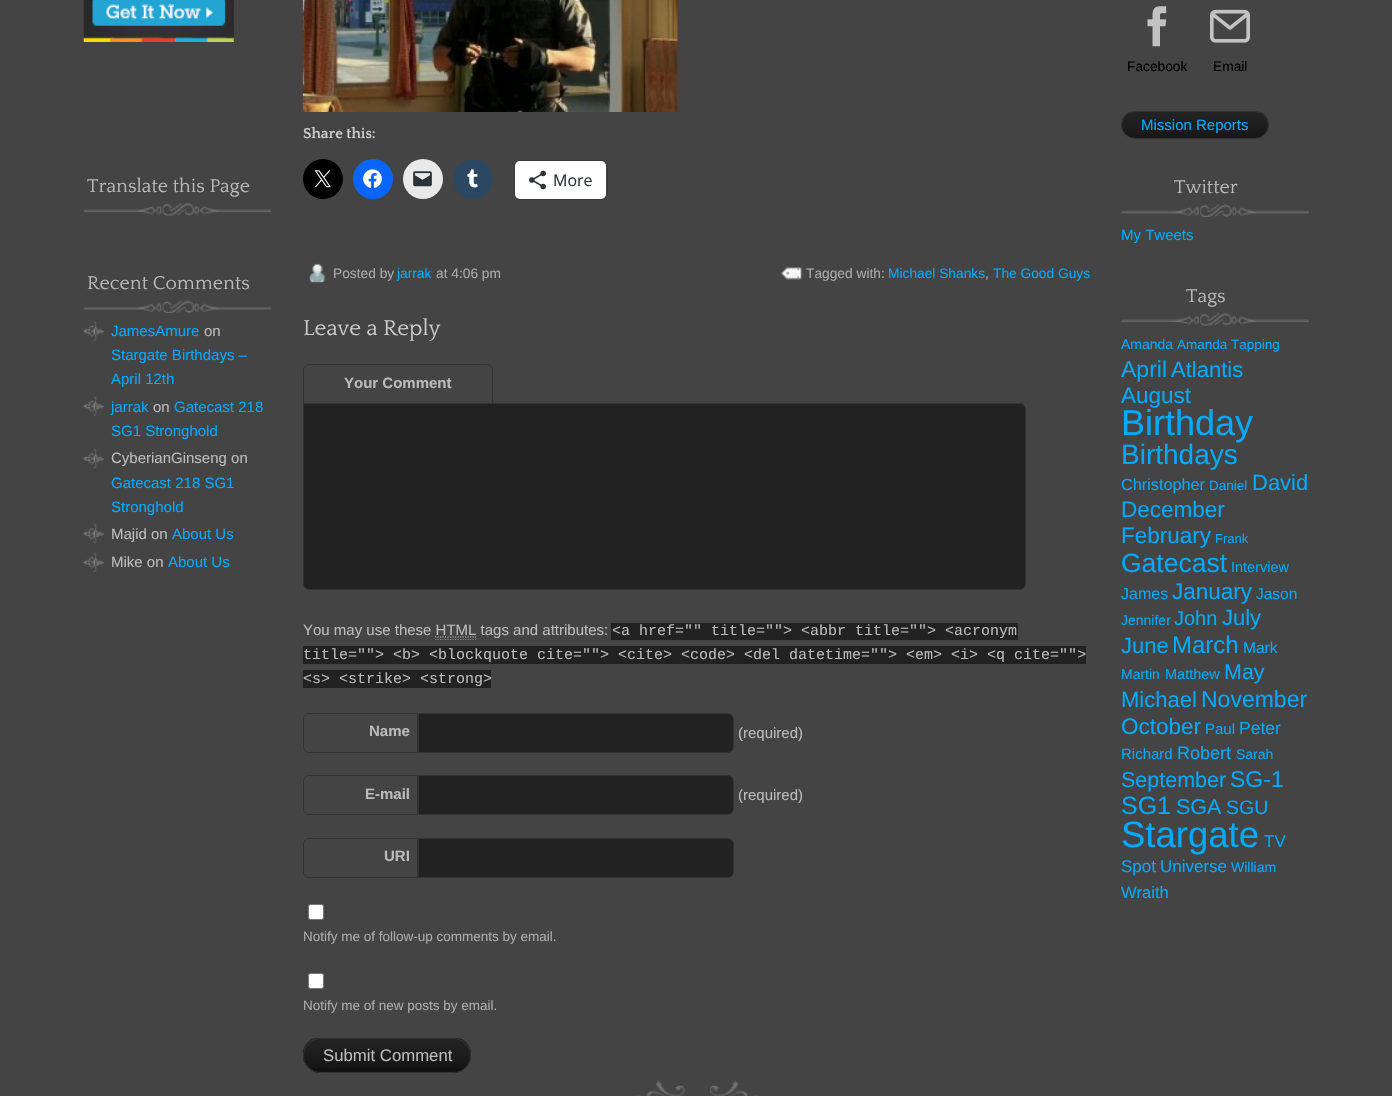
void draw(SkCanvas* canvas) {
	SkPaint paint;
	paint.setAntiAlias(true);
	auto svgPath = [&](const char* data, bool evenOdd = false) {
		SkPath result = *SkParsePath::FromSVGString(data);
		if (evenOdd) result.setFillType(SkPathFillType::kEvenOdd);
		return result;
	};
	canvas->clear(0xff444444);
	canvas->drawImageRect(SkImages::DeferredFromEncodedData(SkData::MakeFromFileName("img1.png")), SkRect::MakeXYWH(83, 0, 151, 42), SkSamplingOptions());
	canvas->drawImageRect(SkImages::DeferredFromEncodedData(SkData::MakeFromFileName("img2.png")), SkRect::MakeXYWH(83, 203, 189, 13), SkSamplingOptions());
	SkFont f1(fontMgr->matchFamilyStyle("Quattrocento", SkFontStyle::Normal()), 19.5);
	f1.setSubpixel(true);
	paint.setColor(0xffbbbbbb);
	canvas->drawString("Translate this Page", 87, 192, f1, paint);
	canvas->drawImageRect(SkImages::DeferredFromEncodedData(SkData::MakeFromFileName("img3.png")), SkRect::MakeXYWH(83, 300, 189, 13), SkSamplingOptions());
	canvas->drawString("Recent Comments", 87, 289, f1, paint);
	canvas->drawImageRect(SkImages::DeferredFromEncodedData(SkData::MakeFromFileName("img4.png")), SkRect::MakeXYWH(83, 321, 21, 20), SkSamplingOptions());
	SkFont f2(fontMgr->matchFamilyStyle("Liberation Sans", SkFontStyle::Normal()), 15);
	f2.setSubpixel(true);
	paint.setColor(0xff00aaff);
	canvas->drawString("JamesAmure", 111, 336, f2, paint);
	paint.setColor(0xffbbbbbb);
	canvas->drawString("on", 204, 336, f2, paint);
	paint.setColor(0xff00aaff);
	canvas->drawString("Stargate Birthdays –", 111, 360, f2, paint);
	canvas->drawString("April 12th", 111, 384, f2, paint);
	canvas->drawImageRect(SkImages::DeferredFromEncodedData(SkData::MakeFromFileName("img4.png")), SkRect::MakeXYWH(83, 396, 21, 20), SkSamplingOptions());
	canvas->drawString("jarrak", 111, 412, f2, paint);
	paint.setColor(0xffbbbbbb);
	canvas->drawString("on", 153, 412, f2, paint);
	paint.setColor(0xff00aaff);
	canvas->drawString("Gatecast 218", 174, 412, f2, paint);
	canvas->drawString("SG1 Stronghold", 111, 436, f2, paint);
	canvas->drawImageRect(SkImages::DeferredFromEncodedData(SkData::MakeFromFileName("img5.png")), SkRect::MakeXYWH(83, 448, 21, 21), SkSamplingOptions());
	paint.setColor(0xffbbbbbb);
	canvas->drawString("CyberianGinseng on", 111, 463, f2, paint);
	paint.setColor(0xff00aaff);
	canvas->drawString("Gatecast 218 SG1", 111, 488, f2, paint);
	canvas->drawString("Stronghold", 111, 512, f2, paint);
	canvas->drawImageRect(SkImages::DeferredFromEncodedData(SkData::MakeFromFileName("img5.png")), SkRect::MakeXYWH(83, 523, 21, 21), SkSamplingOptions());
	paint.setColor(0xffbbbbbb);
	canvas->drawString("Majid on", 111, 539, f2, paint);
	paint.setColor(0xff00aaff);
	canvas->drawString("About Us", 172, 539, f2, paint);
	canvas->drawImageRect(SkImages::DeferredFromEncodedData(SkData::MakeFromFileName("img6.png")), SkRect::MakeXYWH(83, 552, 21, 20), SkSamplingOptions());
	paint.setColor(0xffbbbbbb);
	canvas->drawString("Mike on", 111, 567, f2, paint);
	paint.setColor(0xff00aaff);
	canvas->drawString("About Us", 168, 567, f2, paint);
	canvas->drawImageRect(SkImages::DeferredFromEncodedData(SkData::MakeFromFileName("img7.png")), SkRect::MakeXYWH(302, 0, 376, 112), SkSamplingOptions());
	SkFont f3(fontMgr->matchFamilyStyle("Quattrocento", SkFontStyle::Bold()), 15);
	f3.setSubpixel(true);
	paint.setColor(0xffcccccc);
	canvas->drawString("Share this:", 303, 138, f3, paint);
	paint.setColor(0xff000000);
	canvas->drawCircle(323, 179, 20, paint);
	canvas->drawImageRect(SkImages::DeferredFromEncodedData(SkData::MakeFromFileName("img8.png")), SkRect::MakeXYWH(314, 170, 17, 18), SkSamplingOptions());
	paint.setColor(0xff0866ff);
	canvas->drawCircle(373, 179, 20, paint);
	canvas->drawImageRect(SkImages::DeferredFromEncodedData(SkData::MakeFromFileName("img9.png")), SkRect::MakeXYWH(363, 169, 19, 19), SkSamplingOptions());
	paint.setColor(0xffe9e9e9);
	canvas->drawCircle(423, 179, 20, paint);
	canvas->drawImageRect(SkImages::DeferredFromEncodedData(SkData::MakeFromFileName("img10.png")), SkRect::MakeXYWH(413, 171, 19, 16), SkSamplingOptions());
	paint.setColor(0xff2c4762);
	canvas->drawCircle(473, 179, 20, paint);
	canvas->drawImageRect(SkImages::DeferredFromEncodedData(SkData::MakeFromFileName("img11.png")), SkRect::MakeXYWH(467, 169, 11, 19), SkSamplingOptions());
	paint.setStroke(true);
	paint.setStrokeWidth(1);
	paint.setColor(0xff3c3c3c);
	canvas->drawRoundRect(SkRect::MakeXYWH(514.5, 160.5, 93, 39), 5.5, 5.5, paint);
	paint.setStroke(false);
	paint.setColor(0xffffffff);
	canvas->drawRoundRect(SkRect::MakeXYWH(515, 161, 91, 38), 5, 5, paint);
	canvas->drawImageRect(SkImages::DeferredFromEncodedData(SkData::MakeFromFileName("img12.png")), SkRect::MakeXYWH(529, 170, 17, 20), SkSamplingOptions());
	SkFont f4(fontMgr->matchFamilyStyle("Open Sans", SkFontStyle::Normal()), 16);
	f4.setSubpixel(true);
	paint.setColor(0xff2c3338);
	canvas->drawString("More", 553, 186, f4, paint);
	canvas->drawImageRect(SkImages::DeferredFromEncodedData(SkData::MakeFromFileName("img13.png")), SkRect::MakeXYWH(309, 263, 17, 20), SkSamplingOptions());
	SkFont f5(fontMgr->matchFamilyStyle("Liberation Sans", SkFontStyle::Normal()), 13.75);
	f5.setSubpixel(true);
	paint.setColor(0xffaaaaaa);
	canvas->drawString("Posted by", 333, 278, f5, paint);
	paint.setColor(0xff00aaff);
	canvas->drawString("jarrak", 397, 278, f5, paint);
	paint.setColor(0xffaaaaaa);
	canvas->drawString("at 4:06 pm", 436, 278, f5, paint);
	canvas->drawImageRect(SkImages::DeferredFromEncodedData(SkData::MakeFromFileName("img14.png")), SkRect::MakeXYWH(781, 267, 21, 13), SkSamplingOptions());
	canvas->drawString("Tagged with:", 806, 278, f5, paint);
	paint.setColor(0xff00aaff);
	canvas->drawString("Michael Shanks", 888, 278, f5, paint);
	paint.setColor(0xffaaaaaa);
	canvas->drawString(",", 985, 278, f5, paint);
	paint.setColor(0xff00aaff);
	canvas->drawString("The Good Guys", 993, 278, f5, paint);
	canvas->drawImageRect(SkImages::DeferredFromEncodedData(SkData::MakeFromFileName("img15.png")), SkRect::MakeXYWH(637, 1079, 121, 17), SkSamplingOptions());
	SkFont f6(fontMgr->matchFamilyStyle("Quattrocento", SkFontStyle::Normal()), 22.5);
	f6.setSubpixel(true);
	paint.setColor(0xffcccccc);
	canvas->drawString("Leave a Reply", 303, 335, f6, paint);
	paint.setStroke(true);
	paint.setColor(0xff333333);
	canvas->drawPath(svgPath("M309 364.5H487C490 364.5 492.5 367 492.5 370V403.5H303.5V370C303.5 367 306 364.5 309 364.5Z"), paint);
	SkFont f7(fontMgr->matchFamilyStyle("Liberation Sans", SkFontStyle::Bold()), 15);
	f7.setSubpixel(true);
	paint.setStroke(false);
	paint.setColor(0xffbbbbbb);
	canvas->drawString("Your Comment", 344, 388, f7, paint);
	paint.setColor(0xff222222);
	canvas->drawPath(svgPath("M303.5 403.5H1020C1023 403.5 1025.5 406 1025.5 409V584C1025.5 587 1023 589.5 1020 589.5H309C306 589.5 303.5 587 303.5 584Z"), paint);
	paint.setStroke(true);
	paint.setColor(0xff333333);
	canvas->drawPath(svgPath("M303.5 403.5H1020C1023 403.5 1025.5 406 1025.5 409V584C1025.5 587 1023 589.5 1020 589.5H309C306 589.5 303.5 587 303.5 584Z"), paint);
	paint.setStroke(false);
	paint.setColor(0xffbbbbbb);
	canvas->drawString("You may use these HTML tags and attributes:", 303, 635, f2, paint);
	paint.setColor(0xff222222);
	canvas->drawRect(SkRect::MakeXYWH(611, 623, 407, 17), paint);
	SkFont f8(fontMgr->matchFamilyStyle("Liberation Mono", SkFontStyle::Normal()), 15);
	f8.setSubpixel(true);
	paint.setColor(0xffbbbbbb);
	canvas->drawString("<a href=\"\" title=\"\"> <abbr title=\"\"> <acronym", 612, 635, f8, paint);
	paint.setStroke(true);
	paint.setStrokeWidth(1.2);
	paint.setPathEffect(SkDashPathEffect::Make({{1.25f, 1.25f}}, 0));
	canvas->drawPath(svgPath("M435 637H476"), paint);
	paint.setPathEffect(nullptr);
	paint.setColor(0xff888888);
	paint.setPathEffect(SkDashPathEffect::Make({{1.25f, 1.25f}}, 0));
	canvas->drawPath(svgPath("M435 639.5H476"), paint);
	paint.setPathEffect(nullptr);
	paint.setStroke(false);
	paint.setColor(0xff222222);
	canvas->drawRect(SkRect::MakeXYWH(303, 646, 783, 18), paint);
	paint.setColor(0xffbbbbbb);
	canvas->drawString("title=\"\"> <b> <blockquote cite=\"\"> <cite> <code> <del datetime=\"\"> <em> <i> <q cite=\"\">", 303, 659, f8, paint);
	paint.setColor(0xff222222);
	canvas->drawRect(SkRect::MakeXYWH(303, 670, 188, 18), paint);
	paint.setColor(0xffbbbbbb);
	canvas->drawString("<s> <strike> <strong>", 303, 683, f8, paint);
	paint.setStroke(true);
	paint.setStrokeWidth(1);
	paint.setColor(0xff333333);
	canvas->drawPath(svgPath("M309 713.5H417.5V752.5H309C306 752.5 303.5 750 303.5 747V719C303.5 716 306 713.5 309 713.5Z"), paint);
	paint.setStroke(false);
	paint.setColor(0xffbbbbbb);
	canvas->drawString("Name", 369, 736, f7, paint);
	paint.setColor(0xff222222);
	canvas->drawPath(svgPath("M418.5 713.5H728C731 713.5 733.5 716 733.5 719V747C733.5 750 731 752.5 728 752.5H418.5Z"), paint);
	paint.setStroke(true);
	paint.setColor(0xff333333);
	canvas->drawPath(svgPath("M418.5 713.5H728C731 713.5 733.5 716 733.5 719V747C733.5 750 731 752.5 728 752.5H418.5Z"), paint);
	paint.setStroke(false);
	paint.setColor(0xffbbbbbb);
	canvas->drawString("(required)", 738, 738, f2, paint);
	paint.setStroke(true);
	paint.setColor(0xff333333);
	canvas->drawPath(svgPath("M309 775.5H417.5V814.5H309C306 814.5 303.5 812 303.5 809V781C303.5 778 306 775.5 309 775.5Z"), paint);
	paint.setStroke(false);
	paint.setColor(0xffbbbbbb);
	canvas->drawString("E-mail", 365, 799, f7, paint);
	paint.setColor(0xff222222);
	canvas->drawPath(svgPath("M418.5 775.5H728C731 775.5 733.5 778 733.5 781V809C733.5 812 731 814.5 728 814.5H418.5Z"), paint);
	paint.setStroke(true);
	paint.setColor(0xff333333);
	canvas->drawPath(svgPath("M418.5 775.5H728C731 775.5 733.5 778 733.5 781V809C733.5 812 731 814.5 728 814.5H418.5Z"), paint);
	paint.setStroke(false);
	paint.setColor(0xffbbbbbb);
	canvas->drawString("(required)", 738, 800, f2, paint);
	paint.setStroke(true);
	paint.setColor(0xff333333);
	canvas->drawPath(svgPath("M309 838.5H417.5V877.5H309C306 877.5 303.5 875 303.5 872V844C303.5 841 306 838.5 309 838.5Z"), paint);
	paint.setStroke(false);
	paint.setColor(0xffbbbbbb);
	canvas->drawString("URI", 384, 861, f7, paint);
	paint.setColor(0xff222222);
	canvas->drawPath(svgPath("M418.5 838.5H728C731 838.5 733.5 841 733.5 844V872C733.5 875 731 877.5 728 877.5H418.5Z"), paint);
	paint.setStroke(true);
	paint.setColor(0xff333333);
	canvas->drawPath(svgPath("M418.5 838.5H728C731 838.5 733.5 841 733.5 844V872C733.5 875 731 877.5 728 877.5H418.5Z"), paint);
	paint.setStroke(false);
	paint.setColor(0xffffffff);
	canvas->drawRoundRect(SkRect::MakeXYWH(308.5, 904.5, 15, 15), 2, 2, paint);
	paint.setStroke(true);
	paint.setColor(0xff767676);
	canvas->drawRoundRect(SkRect::MakeXYWH(308.5, 904.5, 15, 15), 2, 2, paint);
	SkFont f9(fontMgr->matchFamilyStyle("Liberation Sans", SkFontStyle::Normal()), 13.5);
	f9.setSubpixel(true);
	paint.setStroke(false);
	paint.setColor(0xffaaaaaa);
	canvas->drawString("Notify me of follow-up comments by email.", 303, 941, f9, paint);
	paint.setColor(0xffffffff);
	canvas->drawRoundRect(SkRect::MakeXYWH(308.5, 973.5, 15, 15), 2, 2, paint);
	paint.setStroke(true);
	paint.setColor(0xff767676);
	canvas->drawRoundRect(SkRect::MakeXYWH(308.5, 973.5, 15, 15), 2, 2, paint);
	paint.setStroke(false);
	paint.setColor(0xffaaaaaa);
	canvas->drawString("Notify me of new posts by email.", 303, 1010, f9, paint);
	paint.setColor(0xff111111);
	canvas->drawRoundRect(SkRect::MakeXYWH(303, 1038, 168, 35), 17.5, 17.5, paint);
	canvas->drawImageRect(SkImages::DeferredFromEncodedData(SkData::MakeFromFileName("img16.png")), SkRect::MakeXYWH(302, 1038, 169, 30), SkSamplingOptions());
	paint.setStroke(true);
	paint.setColor(0xff333333);
	canvas->drawRoundRect(SkRect::MakeXYWH(303.5, 1038.5, 167, 34), 17, 17, paint);
	SkFont f10(fontMgr->matchFamilyStyle("Liberation Sans", SkFontStyle::Normal()), 16.75);
	f10.setSubpixel(true);
	paint.setStroke(false);
	paint.setColor(0xffbbbbbb);
	canvas->drawString("Submit Comment", 323, 1061, f10, paint);
	canvas->drawImageRect(SkImages::DeferredFromEncodedData(SkData::MakeFromFileName("img17.png")), SkRect::MakeXYWH(1147, 6, 20, 41), SkSamplingOptions());
	paint.setColor(0xff000000);
	canvas->drawString("Facebook", 1127, 71, f5, paint);
	canvas->drawImageRect(SkImages::DeferredFromEncodedData(SkData::MakeFromFileName("img18.png")), SkRect::MakeXYWH(1210, 9, 40, 34), SkSamplingOptions());
	canvas->drawString("Email", 1213, 71, f5, paint);
	canvas->drawImageRect(SkImages::DeferredFromEncodedData(SkData::MakeFromFileName("img19.png")), SkRect::MakeXYWH(1121, 112, 148, 26), SkSamplingOptions());
	paint.setStroke(true);
	paint.setColor(0xff333333);
	canvas->drawRoundRect(SkRect::MakeXYWH(1121.5, 111.5, 147, 27), 13.5, 13.5, paint);
	paint.setStroke(false);
	paint.setColor(0xff00aaff);
	canvas->drawString("Mission Reports", 1141, 130, f2, paint);
	canvas->drawImageRect(SkImages::DeferredFromEncodedData(SkData::MakeFromFileName("img20.png")), SkRect::MakeXYWH(1121, 204, 188, 13), SkSamplingOptions());
	paint.setColor(0xffbbbbbb);
	canvas->drawString("Twitter", 1174, 193, f1, paint);
	paint.setColor(0xff00aaff);
	canvas->drawString("My Tweets", 1121, 240, f2, paint);
	canvas->drawImageRect(SkImages::DeferredFromEncodedData(SkData::MakeFromFileName("img21.png")), SkRect::MakeXYWH(1121, 313, 188, 13), SkSamplingOptions());
	paint.setColor(0xffbbbbbb);
	canvas->drawString("Tags", 1186, 302, f1, paint);
	SkFont f11(fontMgr->matchFamilyStyle("Liberation Sans", SkFontStyle::Normal()), 14);
	f11.setSubpixel(true);
	paint.setColor(0xff00aaff);
	canvas->drawString("Amanda", 1121, 349, f11, paint);
	canvas->drawString("Amanda Tapping", 1177, 349, f9, paint);
	SkFont f12(fontMgr->matchFamilyStyle("Liberation Sans", SkFontStyle::Normal()), 23);
	f12.setSubpixel(true);
	canvas->drawString("April", 1121, 377, f12, paint);
	SkFont f13(fontMgr->matchFamilyStyle("Liberation Sans", SkFontStyle::Normal()), 22);
	f13.setSubpixel(true);
	canvas->drawString("Atlantis", 1171, 377, f13, paint);
	SkFont f14(fontMgr->matchFamilyStyle("Liberation Sans", SkFontStyle::Normal()), 22.5);
	f14.setSubpixel(true);
	canvas->drawString("August", 1121, 403, f14, paint);
	SkFont f15(fontMgr->matchFamilyStyle("Liberation Sans", SkFontStyle::Normal()), 36);
	f15.setSubpixel(true);
	canvas->drawString("Birthday", 1121, 435, f15, paint);
	SkFont f16(fontMgr->matchFamilyStyle("Liberation Sans", SkFontStyle::Normal()), 28);
	f16.setSubpixel(true);
	canvas->drawString("Birthdays", 1121, 464, f16, paint);
	SkFont f17(fontMgr->matchFamilyStyle("Liberation Sans", SkFontStyle::Normal()), 16.25);
	f17.setSubpixel(true);
	canvas->drawString("Christopher", 1121, 490, f17, paint);
	canvas->drawString("Daniel", 1209, 490, f9, paint);
	canvas->drawString("David", 1252, 490, f13, paint);
	canvas->drawString("December", 1121, 517, f14, paint);
	canvas->drawString("February", 1121, 543, f14, paint);
	SkFont f18(fontMgr->matchFamilyStyle("Liberation Sans", SkFontStyle::Normal()), 13);
	f18.setSubpixel(true);
	canvas->drawString("Frank", 1215, 543, f18, paint);
	SkFont f19(fontMgr->matchFamilyStyle("Liberation Sans", SkFontStyle::Normal()), 26.5);
	f19.setSubpixel(true);
	canvas->drawString("Gatecast", 1121, 572, f19, paint);
	SkFont f20(fontMgr->matchFamilyStyle("Liberation Sans", SkFontStyle::Normal()), 14.5);
	f20.setSubpixel(true);
	canvas->drawString("Interview", 1231, 572, f20, paint);
	SkFont f21(fontMgr->matchFamilyStyle("Liberation Sans", SkFontStyle::Normal()), 16);
	f21.setSubpixel(true);
	canvas->drawString("James", 1121, 599, f21, paint);
	canvas->drawString("January", 1172, 599, f14, paint);
	SkFont f22(fontMgr->matchFamilyStyle("Liberation Sans", SkFontStyle::Normal()), 15.5);
	f22.setSubpixel(true);
	canvas->drawString("Jason", 1256, 599, f22, paint);
	canvas->drawString("Jennifer", 1121, 625, f11, paint);
	SkFont f23(fontMgr->matchFamilyStyle("Liberation Sans", SkFontStyle::Normal()), 20);
	f23.setSubpixel(true);
	canvas->drawString("John", 1174, 625, f23, paint);
	canvas->drawString("July", 1222, 625, f13, paint);
	canvas->drawString("June", 1121, 653, f13, paint);
	SkFont f24(fontMgr->matchFamilyStyle("Liberation Sans", SkFontStyle::Normal()), 24);
	f24.setSubpixel(true);
	canvas->drawString("March", 1172, 653, f24, paint);
	canvas->drawString("Mark", 1243, 653, f22, paint);
	canvas->drawString("Martin", 1121, 679, f11, paint);
	canvas->drawString("Matthew", 1165, 679, f20, paint);
	SkFont f25(fontMgr->matchFamilyStyle("Liberation Sans", SkFontStyle::Normal()), 21.5);
	f25.setSubpixel(true);
	canvas->drawString("May", 1224, 679, f25, paint);
	canvas->drawString("Michael", 1121, 707, f13, paint);
	canvas->drawString("November", 1201, 707, f12, paint);
	canvas->drawString("October", 1121, 734, f14, paint);
	canvas->drawString("Paul", 1205, 734, f2, paint);
	SkFont f26(fontMgr->matchFamilyStyle("Liberation Sans", SkFontStyle::Normal()), 17.5);
	f26.setSubpixel(true);
	canvas->drawString("Peter", 1239, 734, f26, paint);
	canvas->drawString("Richard", 1121, 759, f2, paint);
	SkFont f27(fontMgr->matchFamilyStyle("Liberation Sans", SkFontStyle::Normal()), 18);
	f27.setSubpixel(true);
	canvas->drawString("Robert", 1177, 759, f27, paint);
	canvas->drawString("Sarah", 1236, 759, f11, paint);
	canvas->drawString("September", 1121, 787, f25, paint);
	canvas->drawString("SG-1", 1230, 787, f12, paint);
	SkFont f28(fontMgr->matchFamilyStyle("Liberation Sans", SkFontStyle::Normal()), 25);
	f28.setSubpixel(true);
	canvas->drawString("SG1", 1121, 814, f28, paint);
	canvas->drawString("SGA", 1176, 814, f25, paint);
	SkFont f29(fontMgr->matchFamilyStyle("Liberation Sans", SkFontStyle::Normal()), 19.5);
	f29.setSubpixel(true);
	canvas->drawString("SGU", 1226, 814, f29, paint);
	SkFont f30(fontMgr->matchFamilyStyle("Liberation Sans", SkFontStyle::Normal()), 36.5);
	f30.setSubpixel(true);
	canvas->drawString("Stargate", 1121, 847, f30, paint);
	SkFont f31(fontMgr->matchFamilyStyle("Liberation Sans", SkFontStyle::Normal()), 17);
	f31.setSubpixel(true);
	canvas->drawString("TV", 1264, 847, f31, paint);
	canvas->drawString("Spot", 1121, 872, f31, paint);
	canvas->drawString("Universe", 1160, 872, f31, paint);
	canvas->drawString("William", 1231, 872, f11, paint);
	SkFont f32(fontMgr->matchFamilyStyle("Liberation Sans", SkFontStyle::Normal()), 16.5);
	f32.setSubpixel(true);
	canvas->drawString("Wraith", 1121, 898, f32, paint);
}
